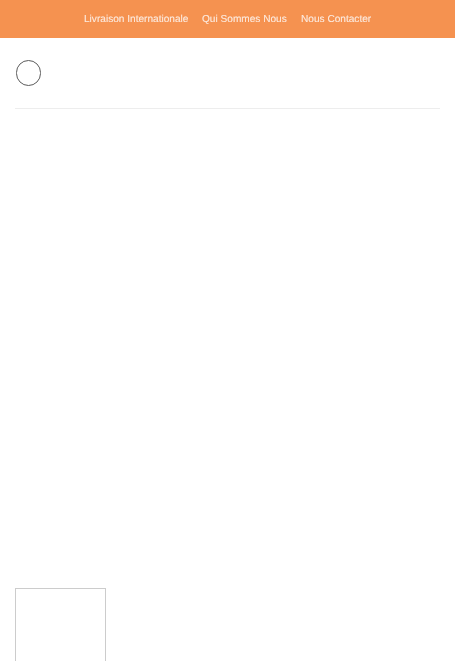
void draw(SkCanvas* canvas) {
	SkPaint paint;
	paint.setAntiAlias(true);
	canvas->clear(0xffffffff);
	paint.setColor(0xfff59250);
	canvas->drawRect(SkRect::MakeXYWH(0, 0, 455, 38), paint);
	SkFont f1(fontMgr->matchFamilyStyle("Liberation Sans", SkFontStyle::Normal()), 10.1);
	f1.setSubpixel(true);
	paint.setColor(0xfffde9dc);
	canvas->drawString("Livraison Internationale", 84, 22, f1, paint);
	canvas->drawString("Qui Sommes Nous", 202, 22, f1, paint);
	canvas->drawString("Nous Contacter", 301, 22, f1, paint);
	paint.setStroke(true);
	paint.setStrokeWidth(1);
	paint.setColor(0xff5b5b5b);
	canvas->drawRoundRect(SkRect::MakeXYWH(16.5, 60.5, 24, 25), 12, 12, paint);
	paint.setStroke(false);
	paint.setColor(0xffededed);
	canvas->drawRect(SkRect::MakeXYWH(15, 108, 425, 1), paint);
	paint.setStroke(true);
	paint.setColor(0xffcccccc);
	canvas->drawRect(SkRect::MakeXYWH(15.5, 588.5, 90, 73), paint);
}
